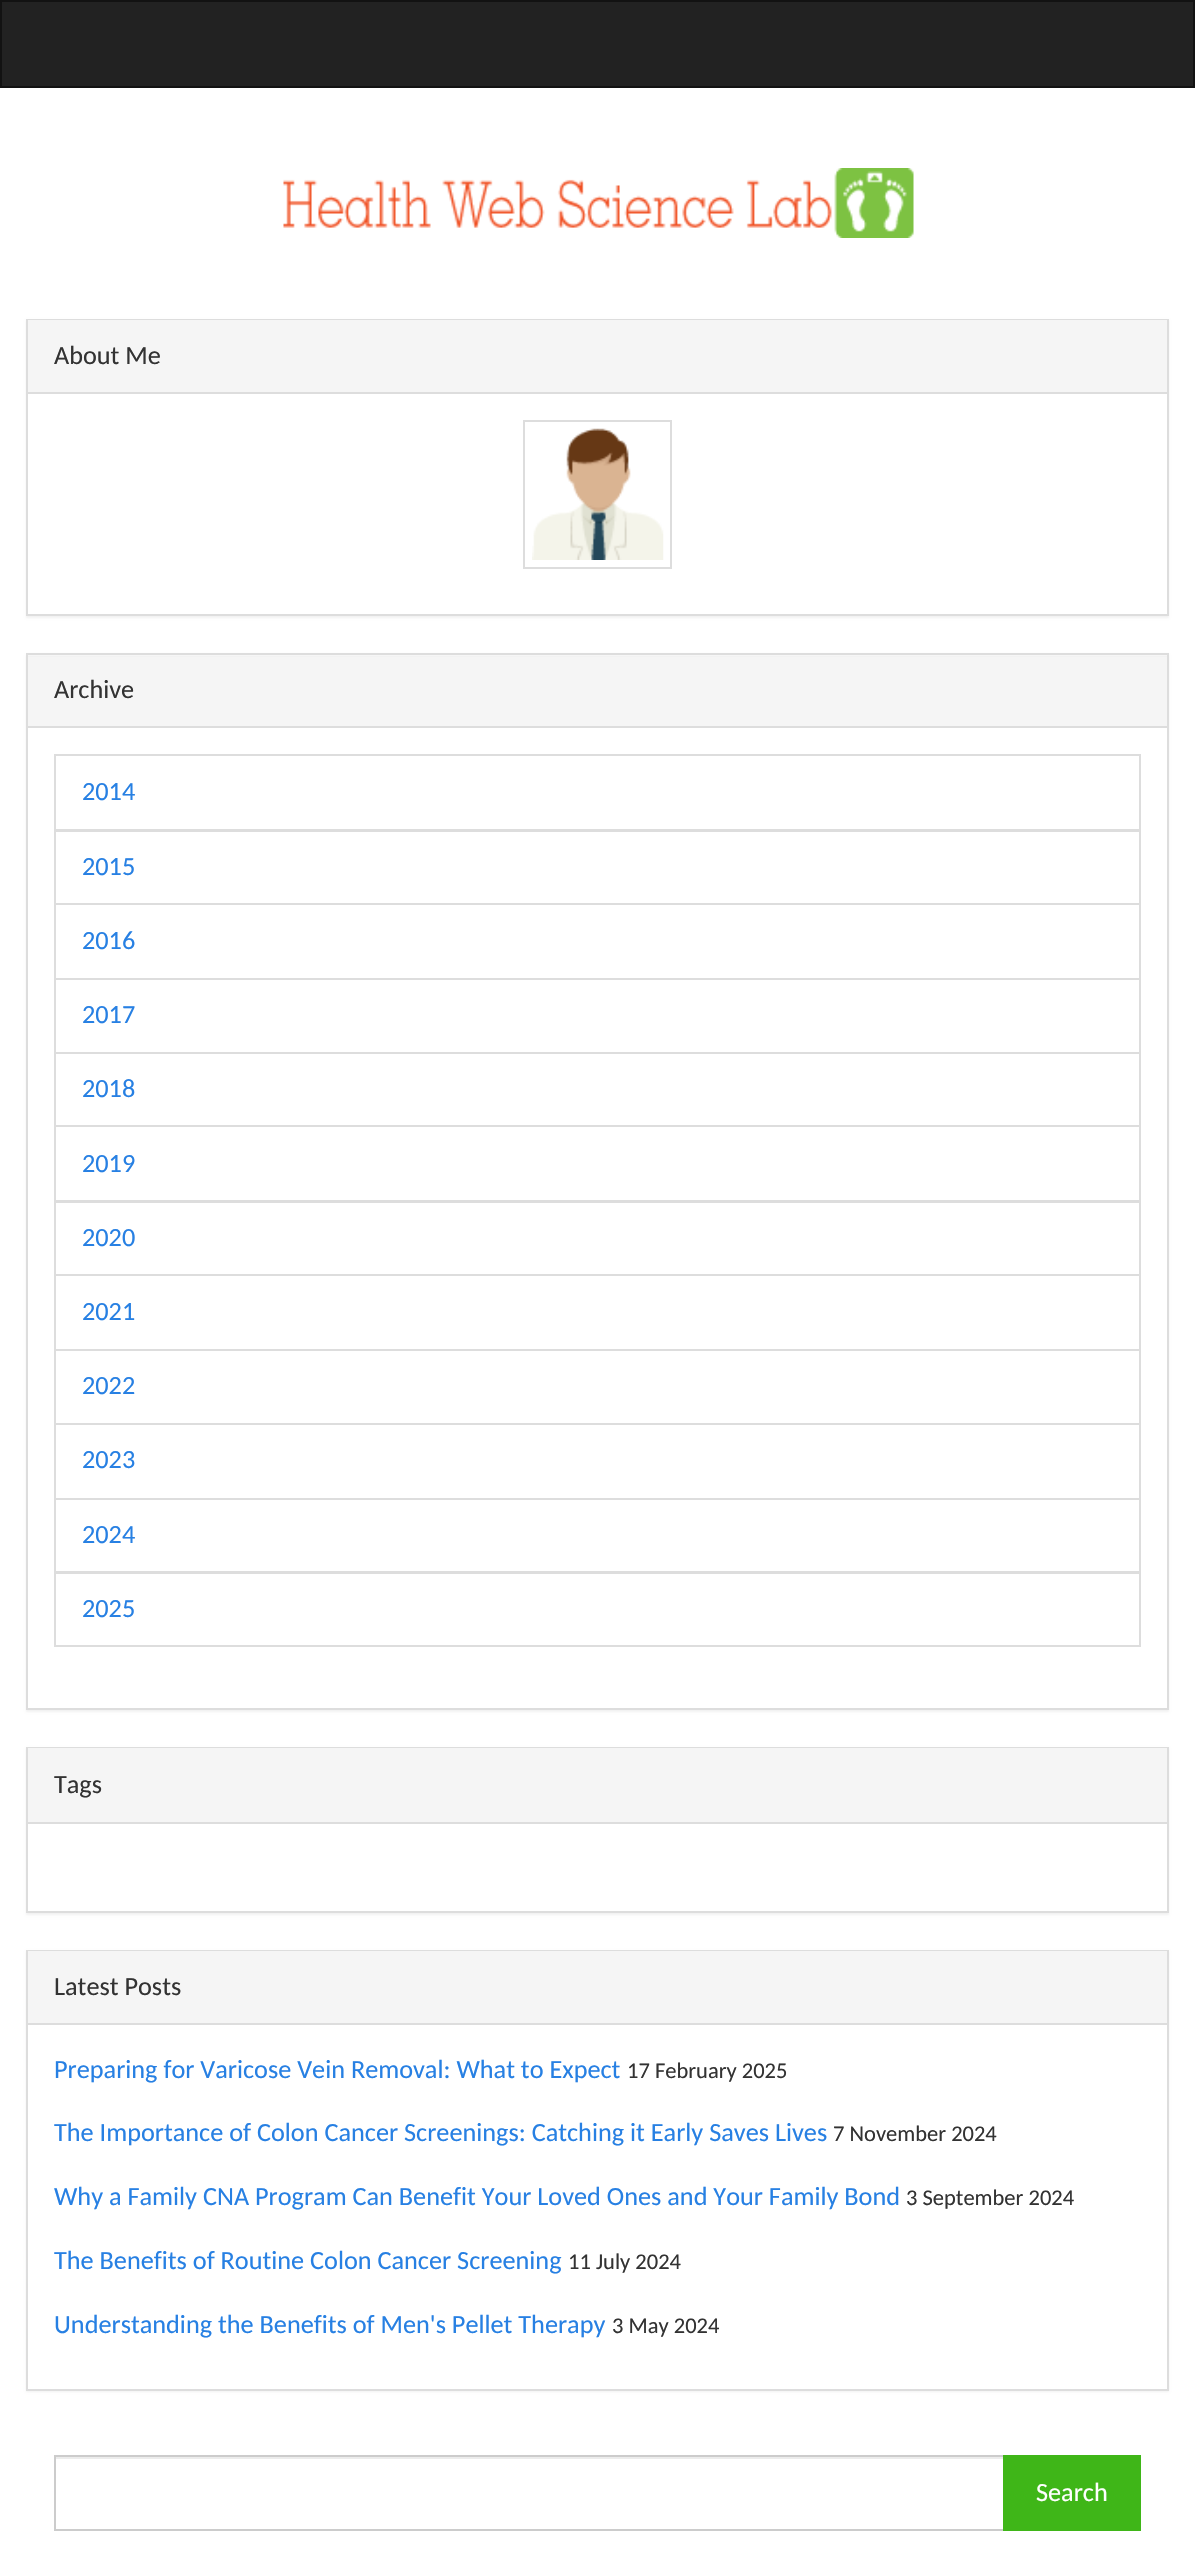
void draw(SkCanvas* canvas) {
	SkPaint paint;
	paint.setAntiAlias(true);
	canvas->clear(0xffffffff);
	paint.setColor(0xff222222);
	canvas->drawRect(SkRect::MakeXYWH(1, 1, 1193, 86), paint);
	paint.setStroke(true);
	paint.setStrokeWidth(2);
	paint.setColor(0xff121212);
	canvas->drawRect(SkRect::MakeXYWH(1, 1, 1193, 86), paint);
	canvas->drawImageRect(SkImages::DeferredFromEncodedData(SkData::MakeFromFileName("img1.png")), SkRect::MakeXYWH(283, 168, 631, 70), SkSamplingOptions());
	paint.setStroke(false);
	paint.setColor(0x0d000000);
	paint.setMaskFilter(SkMaskFilter::MakeBlur(kNormal_SkBlurStyle, 1));
	canvas->drawRect(SkRect::MakeXYWH(26, 320, 1143, 298), paint);
	paint.setMaskFilter(nullptr);
	paint.setColor(0xffffffff);
	canvas->drawRect(SkRect::MakeXYWH(28, 394, 1139, 220), paint);
	paint.setStroke(true);
	paint.setColor(0xffdddddd);
	canvas->drawRect(SkRect::MakeXYWH(27, 320, 1141, 295), paint);
	paint.setStroke(false);
	paint.setColor(0xfff5f5f5);
	canvas->drawRect(SkRect::MakeXYWH(28, 320, 1139, 72), paint);
	paint.setColor(0xffdddddd);
	canvas->drawRect(SkRect::MakeXYWH(28, 392, 1139, 2), paint);
	SkFont f1(fontMgr->matchFamilyStyle("Carlito", SkFontStyle::Normal()), 26.25);
	f1.setSubpixel(true);
	paint.setColor(0xff333333);
	canvas->drawString("About Me", 54, 364, f1, paint);
	paint.setStroke(true);
	paint.setColor(0xffdddddd);
	canvas->drawRect(SkRect::MakeXYWH(524, 421, 147, 147), paint);
	canvas->drawImageRect(SkImages::DeferredFromEncodedData(SkData::MakeFromFileName("img2.png")), SkRect::MakeXYWH(532, 428, 132, 132), SkSamplingOptions());
	paint.setStroke(false);
	paint.setColor(0x0d000000);
	paint.setMaskFilter(SkMaskFilter::MakeBlur(kNormal_SkBlurStyle, 1));
	canvas->drawRect(SkRect::MakeXYWH(26, 655, 1143, 1057), paint);
	paint.setMaskFilter(nullptr);
	paint.setColor(0xffffffff);
	canvas->drawRect(SkRect::MakeXYWH(28, 728, 1139, 980), paint);
	paint.setStroke(true);
	paint.setColor(0xffdddddd);
	canvas->drawRect(SkRect::MakeXYWH(27, 654, 1141, 1055), paint);
	paint.setStroke(false);
	paint.setColor(0xfff5f5f5);
	canvas->drawRect(SkRect::MakeXYWH(28, 657, 1139, 69), paint);
	paint.setColor(0xffdddddd);
	canvas->drawRect(SkRect::MakeXYWH(28, 726, 1139, 2), paint);
	paint.setColor(0xff333333);
	canvas->drawString("Archive", 54, 698, f1, paint);
	paint.setStroke(true);
	paint.setColor(0xffdddddd);
	canvas->drawRect(SkRect::MakeXYWH(55, 755, 1085, 75), paint);
	paint.setStroke(false);
	paint.setColor(0xff2780e3);
	canvas->drawString("2014", 82, 800, f1, paint);
	paint.setStroke(true);
	paint.setColor(0xffdddddd);
	canvas->drawRect(SkRect::MakeXYWH(55, 831, 1085, 73), paint);
	paint.setStroke(false);
	paint.setColor(0xff2780e3);
	canvas->drawString("2015", 82, 875, f1, paint);
	paint.setStroke(true);
	paint.setColor(0xffdddddd);
	canvas->drawRect(SkRect::MakeXYWH(55, 904, 1085, 75), paint);
	paint.setStroke(false);
	paint.setColor(0xff2780e3);
	canvas->drawString("2016", 82, 949, f1, paint);
	paint.setStroke(true);
	paint.setColor(0xffdddddd);
	canvas->drawRect(SkRect::MakeXYWH(55, 979, 1085, 74), paint);
	paint.setStroke(false);
	paint.setColor(0xff2780e3);
	canvas->drawString("2017", 82, 1023, f1, paint);
	paint.setStroke(true);
	paint.setColor(0xffdddddd);
	canvas->drawRect(SkRect::MakeXYWH(55, 1053, 1085, 73), paint);
	paint.setStroke(false);
	paint.setColor(0xff2780e3);
	canvas->drawString("2018", 82, 1097, f1, paint);
	paint.setStroke(true);
	paint.setColor(0xffdddddd);
	canvas->drawRect(SkRect::MakeXYWH(55, 1126, 1085, 75), paint);
	paint.setStroke(false);
	paint.setColor(0xff2780e3);
	canvas->drawString("2019", 82, 1172, f1, paint);
	paint.setStroke(true);
	paint.setColor(0xffdddddd);
	canvas->drawRect(SkRect::MakeXYWH(55, 1202, 1085, 73), paint);
	paint.setStroke(false);
	paint.setColor(0xff2780e3);
	canvas->drawString("2020", 82, 1246, f1, paint);
	paint.setStroke(true);
	paint.setColor(0xffdddddd);
	canvas->drawRect(SkRect::MakeXYWH(55, 1275, 1085, 75), paint);
	paint.setStroke(false);
	paint.setColor(0xff2780e3);
	canvas->drawString("2021", 82, 1320, f1, paint);
	paint.setStroke(true);
	paint.setColor(0xffdddddd);
	canvas->drawRect(SkRect::MakeXYWH(55, 1350, 1085, 74), paint);
	paint.setStroke(false);
	paint.setColor(0xff2780e3);
	canvas->drawString("2022", 82, 1394, f1, paint);
	paint.setStroke(true);
	paint.setColor(0xffdddddd);
	canvas->drawRect(SkRect::MakeXYWH(55, 1424, 1085, 75), paint);
	paint.setStroke(false);
	paint.setColor(0xff2780e3);
	canvas->drawString("2023", 82, 1468, f1, paint);
	paint.setStroke(true);
	paint.setColor(0xffdddddd);
	canvas->drawRect(SkRect::MakeXYWH(55, 1499, 1085, 73), paint);
	paint.setStroke(false);
	paint.setColor(0xff2780e3);
	canvas->drawString("2024", 82, 1543, f1, paint);
	paint.setStroke(true);
	paint.setColor(0xffdddddd);
	canvas->drawRect(SkRect::MakeXYWH(55, 1573, 1085, 73), paint);
	paint.setStroke(false);
	paint.setColor(0xff2780e3);
	canvas->drawString("2025", 82, 1617, f1, paint);
	paint.setColor(0x0d000000);
	paint.setMaskFilter(SkMaskFilter::MakeBlur(kNormal_SkBlurStyle, 1));
	canvas->drawRect(SkRect::MakeXYWH(26, 1748, 1143, 167), paint);
	paint.setMaskFilter(nullptr);
	paint.setColor(0xffffffff);
	canvas->drawRect(SkRect::MakeXYWH(28, 1824, 1139, 87), paint);
	paint.setStroke(true);
	paint.setColor(0xffdddddd);
	canvas->drawRect(SkRect::MakeXYWH(27, 1748, 1141, 164), paint);
	paint.setStroke(false);
	paint.setColor(0xfff5f5f5);
	canvas->drawRect(SkRect::MakeXYWH(28, 1748, 1139, 74), paint);
	paint.setColor(0xffdddddd);
	canvas->drawRect(SkRect::MakeXYWH(28, 1822, 1139, 2), paint);
	paint.setColor(0xff333333);
	canvas->drawString("Tags", 54, 1793, f1, paint);
	paint.setColor(0x0d000000);
	paint.setMaskFilter(SkMaskFilter::MakeBlur(kNormal_SkBlurStyle, 1));
	canvas->drawRect(SkRect::MakeXYWH(26, 1951, 1143, 441), paint);
	paint.setMaskFilter(nullptr);
	paint.setColor(0xffffffff);
	canvas->drawRect(SkRect::MakeXYWH(28, 2025, 1139, 364), paint);
	paint.setStroke(true);
	paint.setColor(0xffdddddd);
	canvas->drawRect(SkRect::MakeXYWH(27, 1951, 1141, 439), paint);
	paint.setStroke(false);
	paint.setColor(0xfff5f5f5);
	canvas->drawRect(SkRect::MakeXYWH(28, 1951, 1139, 72), paint);
	paint.setColor(0xffdddddd);
	canvas->drawRect(SkRect::MakeXYWH(28, 2023, 1139, 2), paint);
	paint.setColor(0xff333333);
	canvas->drawString("Latest Posts", 54, 1995, f1, paint);
	paint.setColor(0xff2780e3);
	canvas->drawString("Preparing for Varicose Vein Removal: What to Expect", 54, 2078, f1, paint);
	SkFont f2(fontMgr->matchFamilyStyle("Carlito", SkFontStyle::Normal()), 22.5);
	f2.setSubpixel(true);
	paint.setColor(0xff333333);
	canvas->drawString("17 February 2025", 627, 2078, f2, paint);
	paint.setColor(0xff2780e3);
	canvas->drawString("The Importance of Colon Cancer Screenings: Catching it Early Saves Lives", 54, 2141, f1, paint);
	paint.setColor(0xff333333);
	canvas->drawString("7 November 2024", 833, 2141, f2, paint);
	paint.setColor(0xff2780e3);
	canvas->drawString("Why a Family CNA Program Can Benefit Your Loved Ones and Your Family Bond", 54, 2205, f1, paint);
	paint.setColor(0xff333333);
	canvas->drawString("3 September 2024", 906, 2205, f2, paint);
	paint.setColor(0xff2780e3);
	canvas->drawString("The Benefits of Routine Colon Cancer Screening", 54, 2269, f1, paint);
	paint.setColor(0xff333333);
	canvas->drawString("11 July 2024", 568, 2269, f2, paint);
	paint.setColor(0xff2780e3);
	canvas->drawString("Understanding the Benefits of Men's Pellet Therapy", 54, 2333, f1, paint);
	paint.setColor(0xff333333);
	canvas->drawString("3 May 2024", 612, 2333, f2, paint);
	paint.setColor(0xffececec);
	canvas->drawRect(SkRect::MakeXYWH(56, 2457, 947, 2), paint);
	paint.setStroke(true);
	paint.setColor(0xffcccccc);
	canvas->drawRect(SkRect::MakeXYWH(55, 2456, 949, 74), paint);
	paint.setStroke(false);
	paint.setColor(0xff3fb618);
	canvas->drawRect(SkRect::MakeXYWH(1003, 2455, 138, 76), paint);
	paint.setColor(0xffffffff);
	canvas->drawString("Search", 1036, 2501, f1, paint);
}
